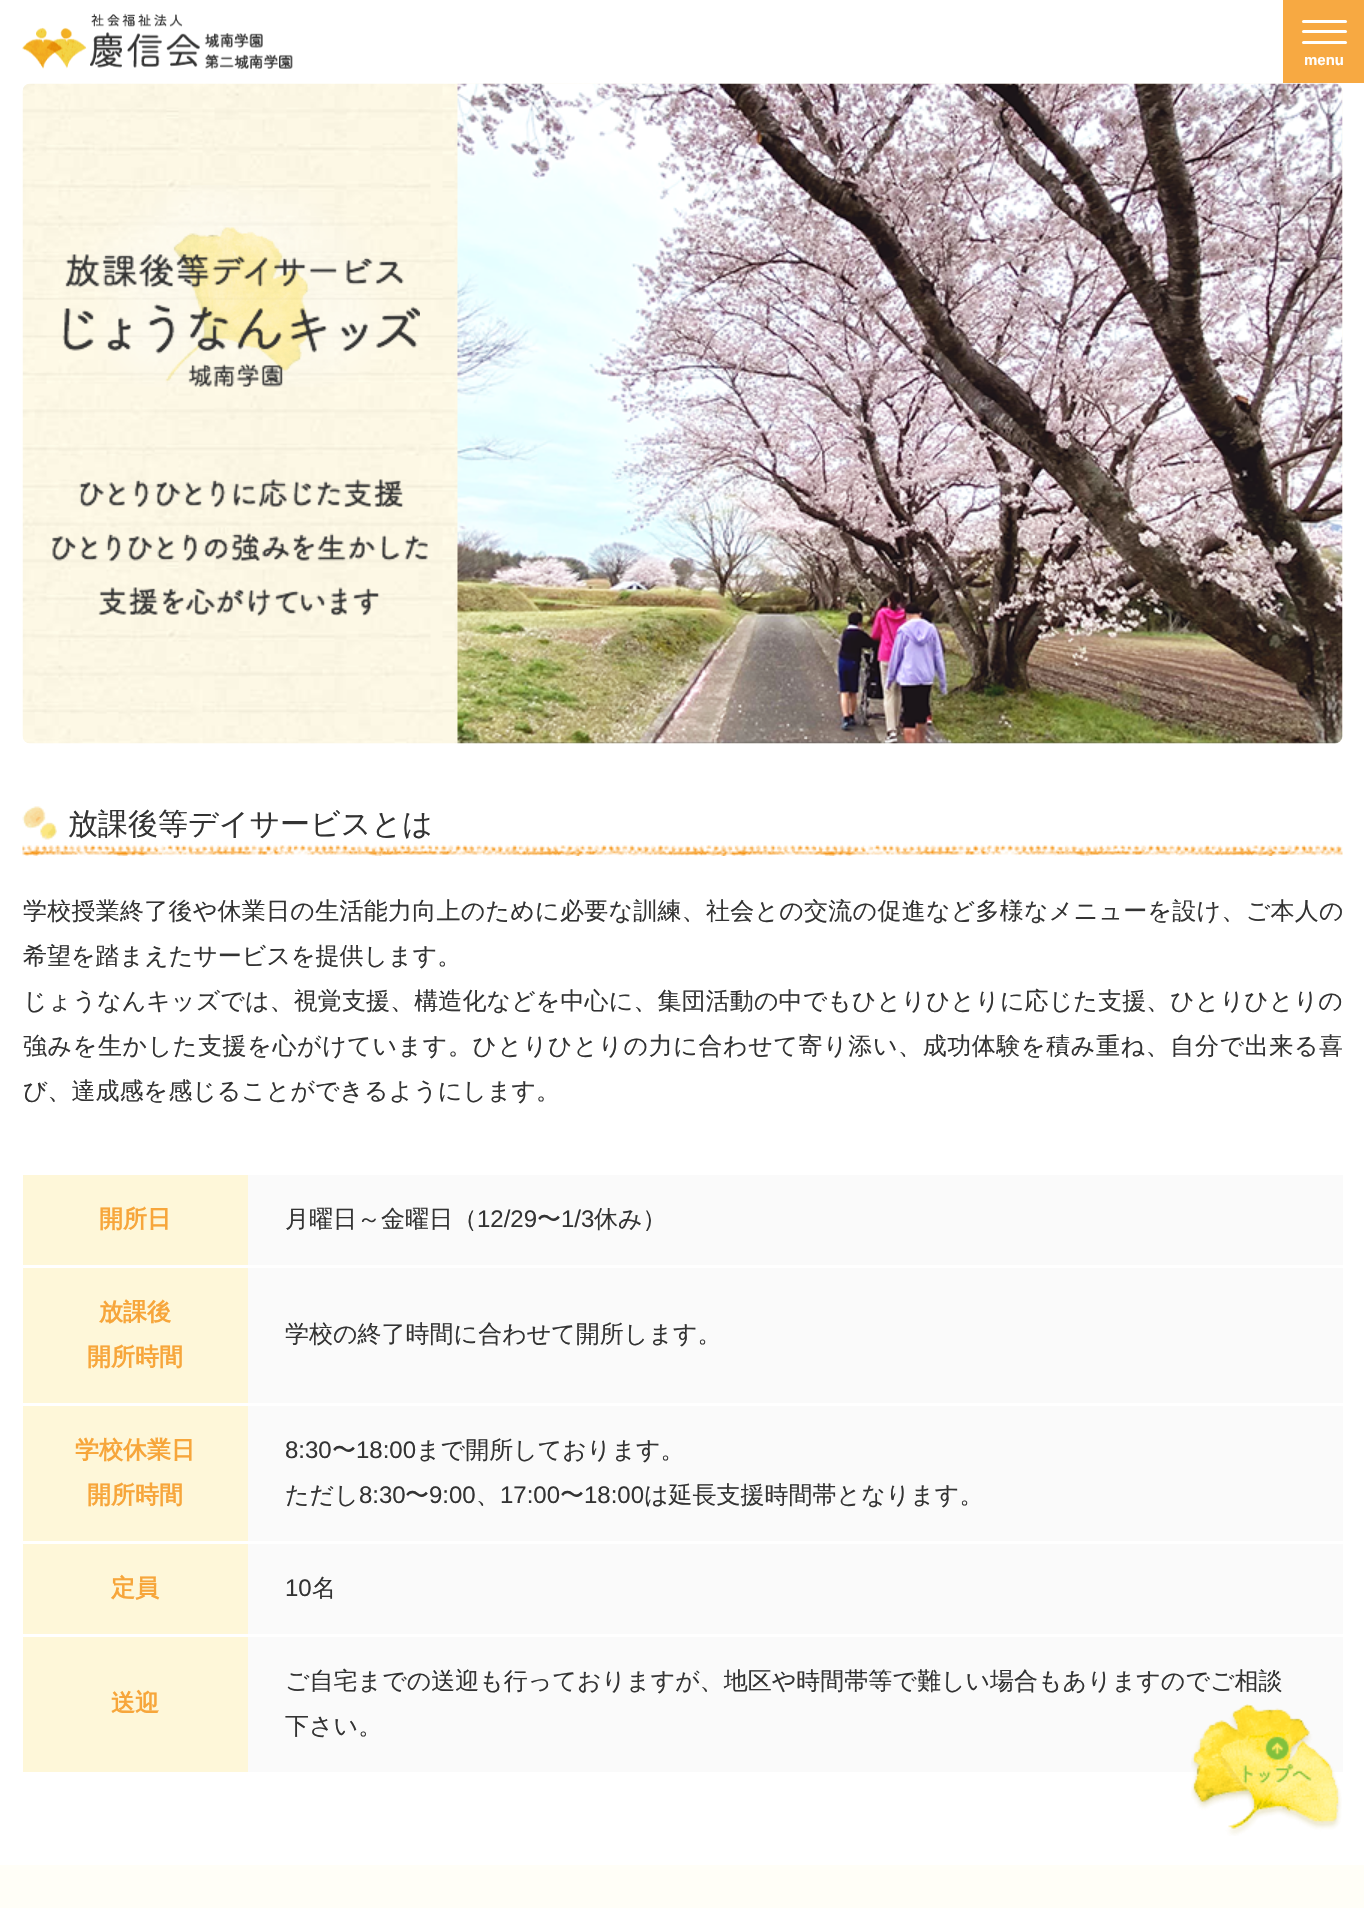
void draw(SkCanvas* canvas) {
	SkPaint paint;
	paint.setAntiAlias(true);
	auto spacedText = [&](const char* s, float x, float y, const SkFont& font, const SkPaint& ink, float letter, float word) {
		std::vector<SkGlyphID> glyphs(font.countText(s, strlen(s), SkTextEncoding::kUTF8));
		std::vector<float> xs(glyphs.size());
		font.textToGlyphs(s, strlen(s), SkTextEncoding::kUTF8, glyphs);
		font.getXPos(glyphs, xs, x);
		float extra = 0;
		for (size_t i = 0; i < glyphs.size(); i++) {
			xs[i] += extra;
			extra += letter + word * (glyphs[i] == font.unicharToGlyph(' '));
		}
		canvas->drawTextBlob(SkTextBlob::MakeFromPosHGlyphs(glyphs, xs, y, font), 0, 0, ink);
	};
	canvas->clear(0xffffffff);
	canvas->drawImageRect(SkImages::DeferredFromEncodedData(SkData::MakeFromFileName("img1.png")), SkRect::MakeXYWH(22, 13, 271, 56), SkSamplingOptions());
	paint.setColor(0xfff7a942);
	canvas->drawRect(SkRect::MakeXYWH(1283, 0, 81, 83), paint);
	paint.setColor(0xffffffff);
	canvas->drawRoundRect(SkRect::MakeXYWH(1302, 20, 45, 3), 1.5, 1.5, paint);
	canvas->drawRoundRect(SkRect::MakeXYWH(1302, 41, 45, 3), 1.5, 1.5, paint);
	canvas->drawRoundRect(SkRect::MakeXYWH(1302, 30, 45, 3), 1.5, 1.5, paint);
	SkFont f1(fontMgr->matchFamilyStyle("Liberation Sans", SkFontStyle::Bold()), 15);
	f1.setSubpixel(true);
	canvas->drawString("menu", 1304, 65, f1, paint);
	canvas->drawImageRect(SkImages::DeferredFromEncodedData(SkData::MakeFromFileName("img2.png")), SkRect::MakeXYWH(22, 83, 1321, 661), SkSamplingOptions());
	canvas->drawImageRect(SkImages::DeferredFromEncodedData(SkData::MakeFromFileName("img3.png")), SkRect::MakeXYWH(62, 185, 358, 202), SkSamplingOptions());
	canvas->drawImageRect(SkImages::DeferredFromEncodedData(SkData::MakeFromFileName("img4.png")), SkRect::MakeXYWH(52, 479, 376, 137), SkSamplingOptions());
	canvas->drawImageRect(SkImages::DeferredFromEncodedData(SkData::MakeFromFileName("img5.png")), SkRect::MakeXYWH(457, 83, 886, 661), SkSamplingOptions());
	canvas->drawImageRect(SkImages::DeferredFromEncodedData(SkData::MakeFromFileName("img6.png")), SkRect::MakeXYWH(22, 806, 35, 34), SkSamplingOptions());
	SkFont f2(fontMgr->matchFamilyStyle("WenQuanYi Zen Hei", SkFontStyle(500, SkFontStyle::kNormal_Width, SkFontStyle::kUpright_Slant)), 30);
	f2.setSubpixel(true);
	paint.setColor(0xff333333);
	canvas->drawString("放課後等デイサービスとは", 68, 834, f2, paint);
	canvas->drawImageRect(SkImages::DeferredFromEncodedData(SkData::MakeFromFileName("img7.png")), SkRect::MakeXYWH(22, 845, 1321, 11), SkSamplingOptions());
	SkFont f3(fontMgr->matchFamilyStyle("WenQuanYi Zen Hei", SkFontStyle(500, SkFontStyle::kNormal_Width, SkFontStyle::kUpright_Slant)), 24);
	f3.setSubpixel(true);
	spacedText("学校授業終了後や休業日の生活能力向上のために必要な訓練、社会との交流の促進など多様なメニューを設け、ご本人の", 23, 919, f3, paint, 0.25, 0);
	canvas->drawString("希望を踏まえたサービスを提供します。", 23, 964, f3, paint);
	spacedText("じょうなんキッズでは、視覚支援、構造化などを中心に、集団活動の中でもひとりひとりに応じた支援、ひとりひとりの", 23, 1009, f3, paint, 0.1, 0);
	spacedText("強みを生かした支援を心がけています。ひとりひとりの力に合わせて寄り添い、成功体験を積み重ね、自分で出来る喜", 23, 1054, f3, paint, 0.6, 0);
	canvas->drawString("び、達成感を感じることができるようにします。", 23, 1099, f3, paint);
	paint.setColor(0xfffef7d9);
	canvas->drawRect(SkRect::MakeXYWH(23, 1175, 225, 90), paint);
	SkFont f4(fontMgr->matchFamilyStyle("WenQuanYi Zen Hei", SkFontStyle::Bold()), 24);
	f4.setSubpixel(true);
	paint.setColor(0xfff7a63b);
	canvas->drawString("開所日", 99, 1227, f4, paint);
	paint.setColor(0xfffafafa);
	canvas->drawRect(SkRect::MakeXYWH(248, 1175, 1095, 90), paint);
	paint.setColor(0xff333333);
	canvas->drawString("月曜日～金曜日（", 285, 1227, f3, paint);
	SkFont f5(fontMgr->matchFamilyStyle("Liberation Sans", SkFontStyle::Normal()), 24);
	f5.setSubpixel(true);
	canvas->drawString("12/29", 477, 1227, f5, paint);
	canvas->drawString("〜", 537, 1227, f3, paint);
	canvas->drawString("1/3", 561, 1227, f5, paint);
	canvas->drawString("休み）", 594, 1227, f3, paint);
	paint.setColor(0xfffef7d9);
	canvas->drawRect(SkRect::MakeXYWH(23, 1268, 225, 135), paint);
	paint.setColor(0xfff7a63b);
	canvas->drawString("放課後", 99, 1320, f4, paint);
	canvas->drawString("開所時間", 87, 1365, f4, paint);
	paint.setColor(0xfffafafa);
	canvas->drawRect(SkRect::MakeXYWH(248, 1268, 1095, 135), paint);
	paint.setColor(0xff333333);
	canvas->drawString("学校の終了時間に合わせて開所します。", 285, 1342, f3, paint);
	paint.setColor(0xfffef7d9);
	canvas->drawRect(SkRect::MakeXYWH(23, 1406, 225, 135), paint);
	paint.setColor(0xfff7a63b);
	canvas->drawString("学校休業日", 75, 1458, f4, paint);
	canvas->drawString("開所時間", 87, 1503, f4, paint);
	paint.setColor(0xfffafafa);
	canvas->drawRect(SkRect::MakeXYWH(248, 1406, 1095, 135), paint);
	paint.setColor(0xff333333);
	canvas->drawString("8:30", 285, 1458, f5, paint);
	canvas->drawString("〜", 332, 1458, f3, paint);
	canvas->drawString("18:00", 356, 1458, f5, paint);
	canvas->drawString("まで開所しております。", 416, 1458, f3, paint);
	canvas->drawString("ただし", 285, 1503, f3, paint);
	canvas->drawString("8:30", 359, 1503, f5, paint);
	canvas->drawString("〜", 405, 1503, f3, paint);
	canvas->drawString("9:00", 429, 1503, f5, paint);
	canvas->drawString("17:00", 500, 1503, f5, paint);
	canvas->drawString("〜", 560, 1503, f3, paint);
	canvas->drawString("18:00", 584, 1503, f5, paint);
	canvas->drawString("は延長支援時間帯となります。", 644, 1503, f3, paint);
	canvas->drawString("、", 476, 1503, f3, paint);
	paint.setColor(0xfffef7d9);
	canvas->drawRect(SkRect::MakeXYWH(23, 1544, 225, 90), paint);
	paint.setColor(0xfff7a63b);
	canvas->drawString("定員", 111, 1596, f4, paint);
	paint.setColor(0xfffafafa);
	canvas->drawRect(SkRect::MakeXYWH(248, 1544, 1095, 90), paint);
	paint.setColor(0xff333333);
	canvas->drawString("10", 285, 1596, f5, paint);
	canvas->drawString("名", 312, 1596, f3, paint);
	paint.setColor(0xfffef7d9);
	canvas->drawRect(SkRect::MakeXYWH(23, 1637, 225, 135), paint);
	paint.setColor(0xfff7a63b);
	canvas->drawString("送迎", 111, 1711, f4, paint);
	paint.setColor(0xfffafafa);
	canvas->drawRect(SkRect::MakeXYWH(248, 1637, 1095, 135), paint);
	paint.setColor(0xff333333);
	canvas->drawString("ご自宅までの送迎も行っておりますが、地区や時間帯等で難しい場合もありますのでご相談", 285, 1689, f3, paint);
	canvas->drawString("下さい。", 285, 1734, f3, paint);
	paint.setColor(0xfffffef7);
	canvas->drawRect(SkRect::MakeXYWH(0, 1865, 1364, 43), paint);
	canvas->drawImageRect(SkImages::DeferredFromEncodedData(SkData::MakeFromFileName("img8.png")), SkRect::MakeXYWH(1191, 1704, 151, 132), SkSamplingOptions());
}
